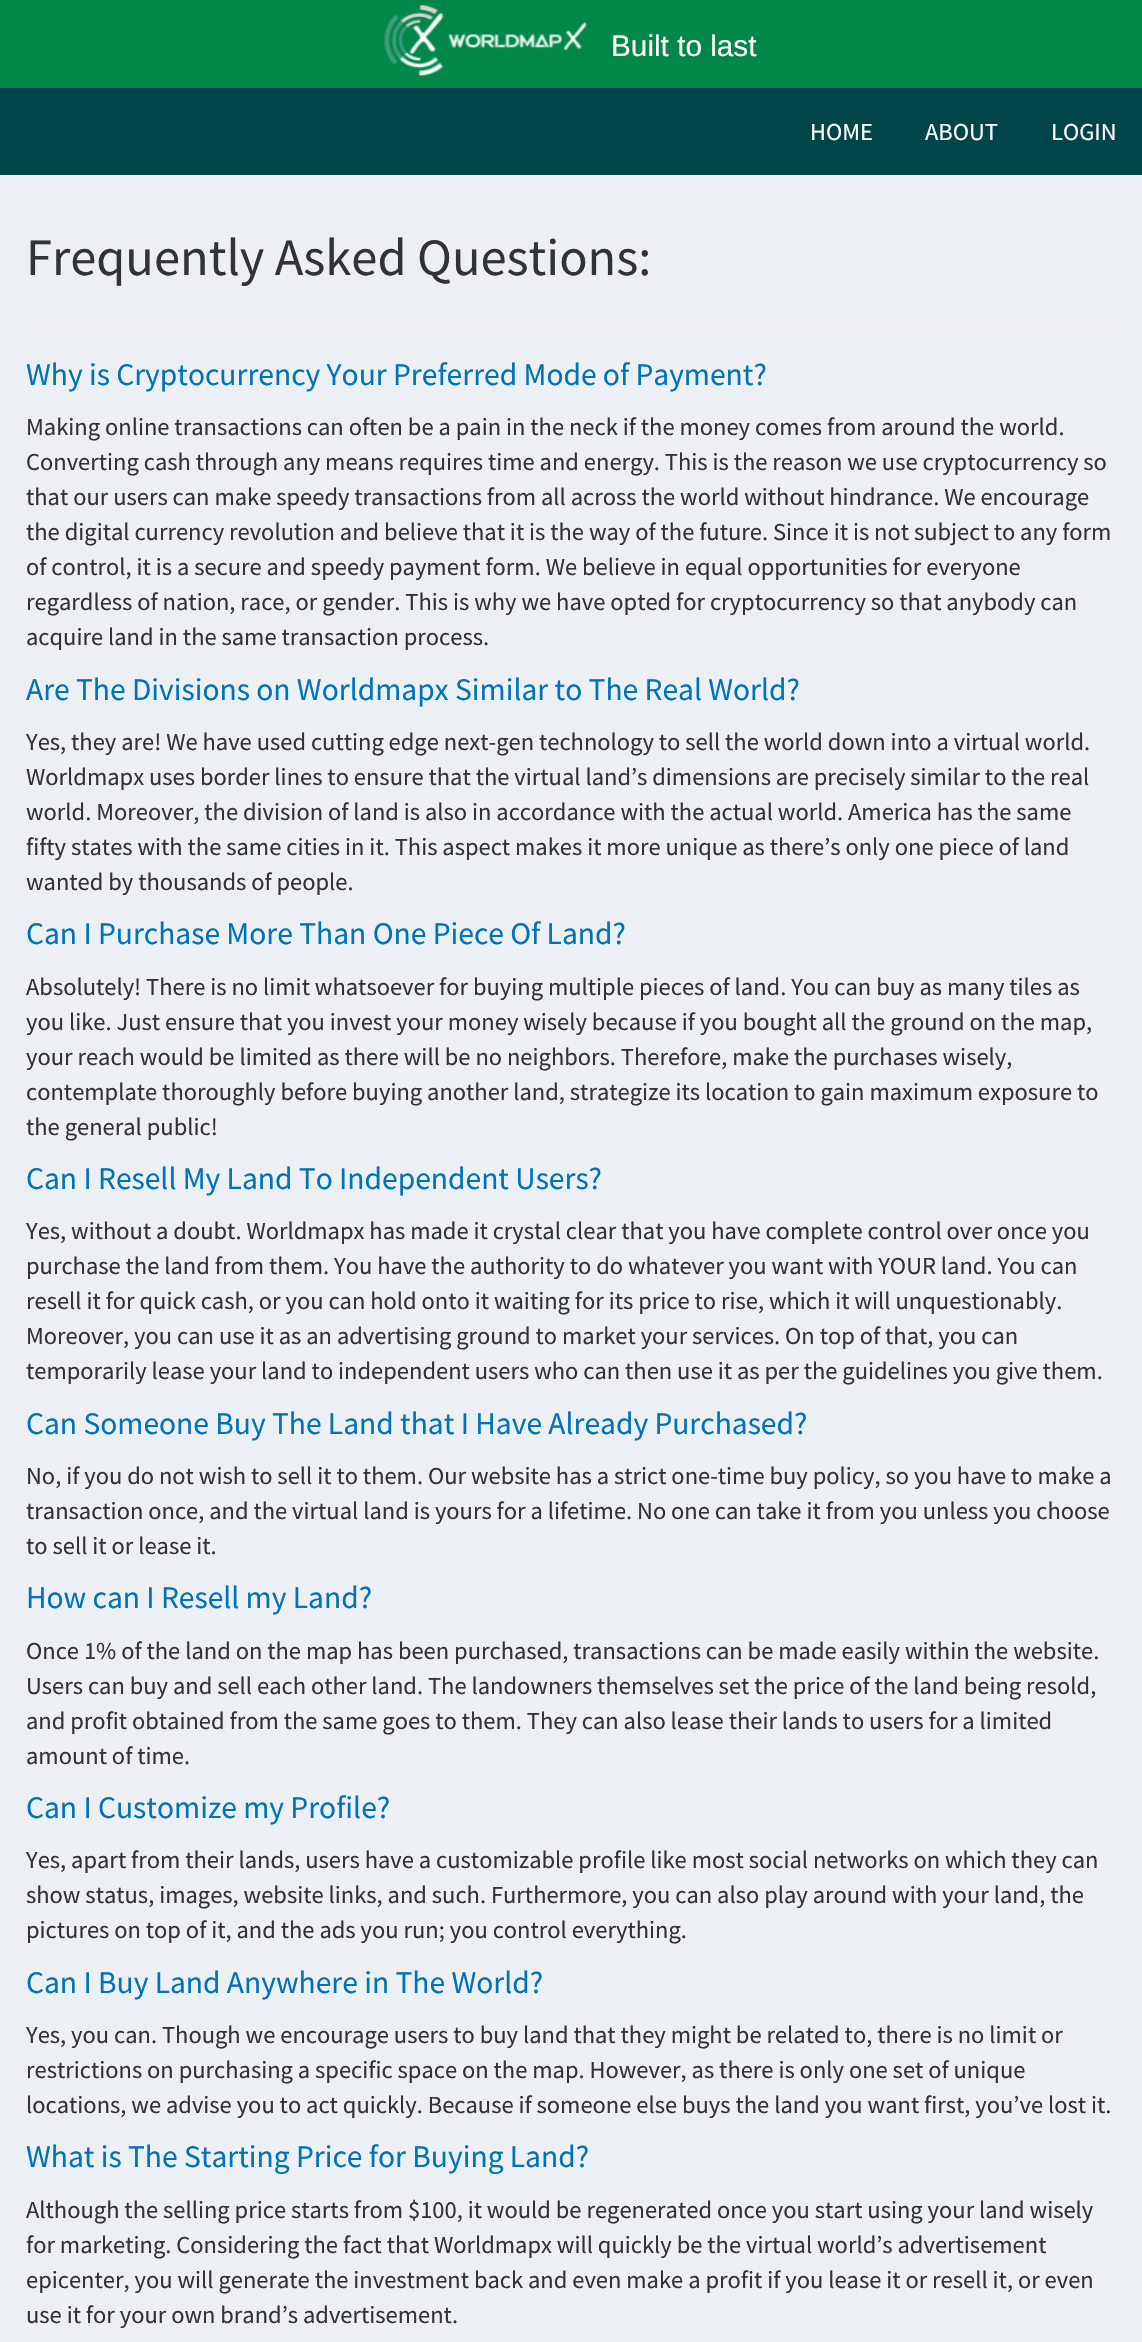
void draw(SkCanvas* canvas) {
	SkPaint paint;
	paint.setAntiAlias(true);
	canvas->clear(0xffecf0f5);
	paint.setColor(0xff008749);
	canvas->drawRect(SkRect::MakeXYWH(0, 0, 1142, 88), paint);
	canvas->drawImageRect(SkImages::DeferredFromEncodedData(SkData::MakeFromFileName("img1.png")), SkRect::MakeXYWH(383, 5, 204, 72), SkSamplingOptions());
	SkFont f1(fontMgr->matchFamilyStyle("Liberation Sans", SkFontStyle::Normal()), 29.75);
	f1.setSubpixel(true);
	paint.setColor(0xffffffff);
	canvas->drawString("Built to last", 611, 56, f1, paint);
	paint.setColor(0xff004549);
	canvas->drawRect(SkRect::MakeXYWH(0, 88, 1142, 87), paint);
	SkFont f2(fontMgr->matchFamilyStyle("Source Sans Pro", SkFontStyle::Normal()), 24.5);
	f2.setSubpixel(true);
	paint.setColor(0xffffffff);
	canvas->drawString("HOME", 810, 140, f2, paint);
	canvas->drawString("ABOUT", 925, 140, f2, paint);
	canvas->drawString("LOGIN", 1051, 140, f2, paint);
	SkFont f3(fontMgr->matchFamilyStyle("Source Sans Pro", SkFontStyle::Normal()), 52.5);
	f3.setSubpixel(true);
	paint.setColor(0xff333333);
	canvas->drawString("Frequently Asked Questions:", 26, 275, f3, paint);
	paint.setColor(0xffeeeeee);
	canvas->drawRect(SkRect::MakeXYWH(26, 320, 1091, 2), paint);
	SkFont f4(fontMgr->matchFamilyStyle("Source Sans Pro", SkFontStyle::Normal()), 31.5);
	f4.setSubpixel(true);
	paint.setColor(0xff0073b7);
	canvas->drawString("Why is Cryptocurrency Your Preferred Mode of Payment?", 26, 385, f4, paint);
	paint.setColor(0xff333333);
	canvas->drawString("Making online transactions can often be a pain in the neck if the money comes from around the world.", 26, 435, f2, paint);
	canvas->drawString("Converting cash through any means requires time and energy. This is the reason we use cryptocurrency so", 26, 470, f2, paint);
	canvas->drawString("that our users can make speedy transactions from all across the world without hindrance. We encourage", 26, 505, f2, paint);
	canvas->drawString("the digital currency revolution and believe that it is the way of the future. Since it is not subject to any form", 26, 540, f2, paint);
	canvas->drawString("of control, it is a secure and speedy payment form. We believe in equal opportunities for everyone", 26, 575, f2, paint);
	canvas->drawString("regardless of nation, race, or gender. This is why we have opted for cryptocurrency so that anybody can", 26, 610, f2, paint);
	canvas->drawString("acquire land in the same transaction process.", 26, 645, f2, paint);
	paint.setColor(0xff0073b7);
	canvas->drawString("Are The Divisions on Worldmapx Similar to The Real World?", 26, 700, f4, paint);
	paint.setColor(0xff333333);
	canvas->drawString("Yes, they are! We have used cutting edge next-gen technology to sell the world down into a virtual world.", 26, 750, f2, paint);
	canvas->drawString("Worldmapx uses border lines to ensure that the virtual land’s dimensions are precisely similar to the real", 26, 785, f2, paint);
	canvas->drawString("world. Moreover, the division of land is also in accordance with the actual world. America has the same", 26, 820, f2, paint);
	canvas->drawString("fifty states with the same cities in it. This aspect makes it more unique as there’s only one piece of land", 26, 855, f2, paint);
	canvas->drawString("wanted by thousands of people.", 26, 890, f2, paint);
	paint.setColor(0xff0073b7);
	canvas->drawString("Can I Purchase More Than One Piece Of Land?", 26, 944, f4, paint);
	paint.setColor(0xff333333);
	canvas->drawString("Absolutely! There is no limit whatsoever for buying multiple pieces of land. You can buy as many tiles as", 26, 995, f2, paint);
	canvas->drawString("you like. Just ensure that you invest your money wisely because if you bought all the ground on the map,", 26, 1030, f2, paint);
	canvas->drawString("your reach would be limited as there will be no neighbors. Therefore, make the purchases wisely,", 26, 1065, f2, paint);
	canvas->drawString("contemplate thoroughly before buying another land, strategize its location to gain maximum exposure to", 26, 1100, f2, paint);
	canvas->drawString("the general public!", 26, 1135, f2, paint);
	paint.setColor(0xff0073b7);
	canvas->drawString("Can I Resell My Land To Independent Users?", 26, 1189, f4, paint);
	paint.setColor(0xff333333);
	canvas->drawString("Yes, without a doubt. Worldmapx has made it crystal clear that you have complete control over once you", 26, 1239, f2, paint);
	canvas->drawString("purchase the land from them. You have the authority to do whatever you want with YOUR land. You can", 26, 1274, f2, paint);
	canvas->drawString("resell it for quick cash, or you can hold onto it waiting for its price to rise, which it will unquestionably.", 26, 1309, f2, paint);
	canvas->drawString("Moreover, you can use it as an advertising ground to market your services. On top of that, you can", 26, 1344, f2, paint);
	canvas->drawString("temporarily lease your land to independent users who can then use it as per the guidelines you give them.", 26, 1379, f2, paint);
	paint.setColor(0xff0073b7);
	canvas->drawString("Can Someone Buy The Land that I Have Already Purchased?", 26, 1434, f4, paint);
	paint.setColor(0xff333333);
	canvas->drawString("No, if you do not wish to sell it to them. Our website has a strict one-time buy policy, so you have to make a", 26, 1484, f2, paint);
	canvas->drawString("transaction once, and the virtual land is yours for a lifetime. No one can take it from you unless you choose", 26, 1519, f2, paint);
	canvas->drawString("to sell it or lease it.", 26, 1554, f2, paint);
	paint.setColor(0xff0073b7);
	canvas->drawString("How can I Resell my Land?", 26, 1608, f4, paint);
	paint.setColor(0xff333333);
	canvas->drawString("Once 1% of the land on the map has been purchased, transactions can be made easily within the website.", 26, 1659, f2, paint);
	canvas->drawString("Users can buy and sell each other land. The landowners themselves set the price of the land being resold,", 26, 1694, f2, paint);
	canvas->drawString("and profit obtained from the same goes to them. They can also lease their lands to users for a limited", 26, 1729, f2, paint);
	canvas->drawString("amount of time.", 26, 1764, f2, paint);
	paint.setColor(0xff0073b7);
	canvas->drawString("Can I Customize my Profile?", 26, 1818, f4, paint);
	paint.setColor(0xff333333);
	canvas->drawString("Yes, apart from their lands, users have a customizable profile like most social networks on which they can", 26, 1868, f2, paint);
	canvas->drawString("show status, images, website links, and such. Furthermore, you can also play around with your land, the", 26, 1903, f2, paint);
	canvas->drawString("pictures on top of it, and the ads you run; you control everything.", 26, 1938, f2, paint);
	paint.setColor(0xff0073b7);
	canvas->drawString("Can I Buy Land Anywhere in The World?", 26, 1993, f4, paint);
	paint.setColor(0xff333333);
	canvas->drawString("Yes, you can. Though we encourage users to buy land that they might be related to, there is no limit or", 26, 2043, f2, paint);
	canvas->drawString("restrictions on purchasing a specific space on the map. However, as there is only one set of unique", 26, 2078, f2, paint);
	canvas->drawString("locations, we advise you to act quickly. Because if someone else buys the land you want first, you’ve lost it.", 26, 2113, f2, paint);
	paint.setColor(0xff0073b7);
	canvas->drawString("What is The Starting Price for Buying Land?", 26, 2167, f4, paint);
	paint.setColor(0xff333333);
	canvas->drawString("Although the selling price starts from $100, it would be regenerated once you start using your land wisely", 26, 2218, f2, paint);
	canvas->drawString("for marketing. Considering the fact that Worldmapx will quickly be the virtual world’s advertisement", 26, 2253, f2, paint);
	canvas->drawString("epicenter, you will generate the investment back and even make a profit if you lease it or resell it, or even", 26, 2288, f2, paint);
	canvas->drawString("use it for your own brand’s advertisement.", 26, 2323, f2, paint);
}
